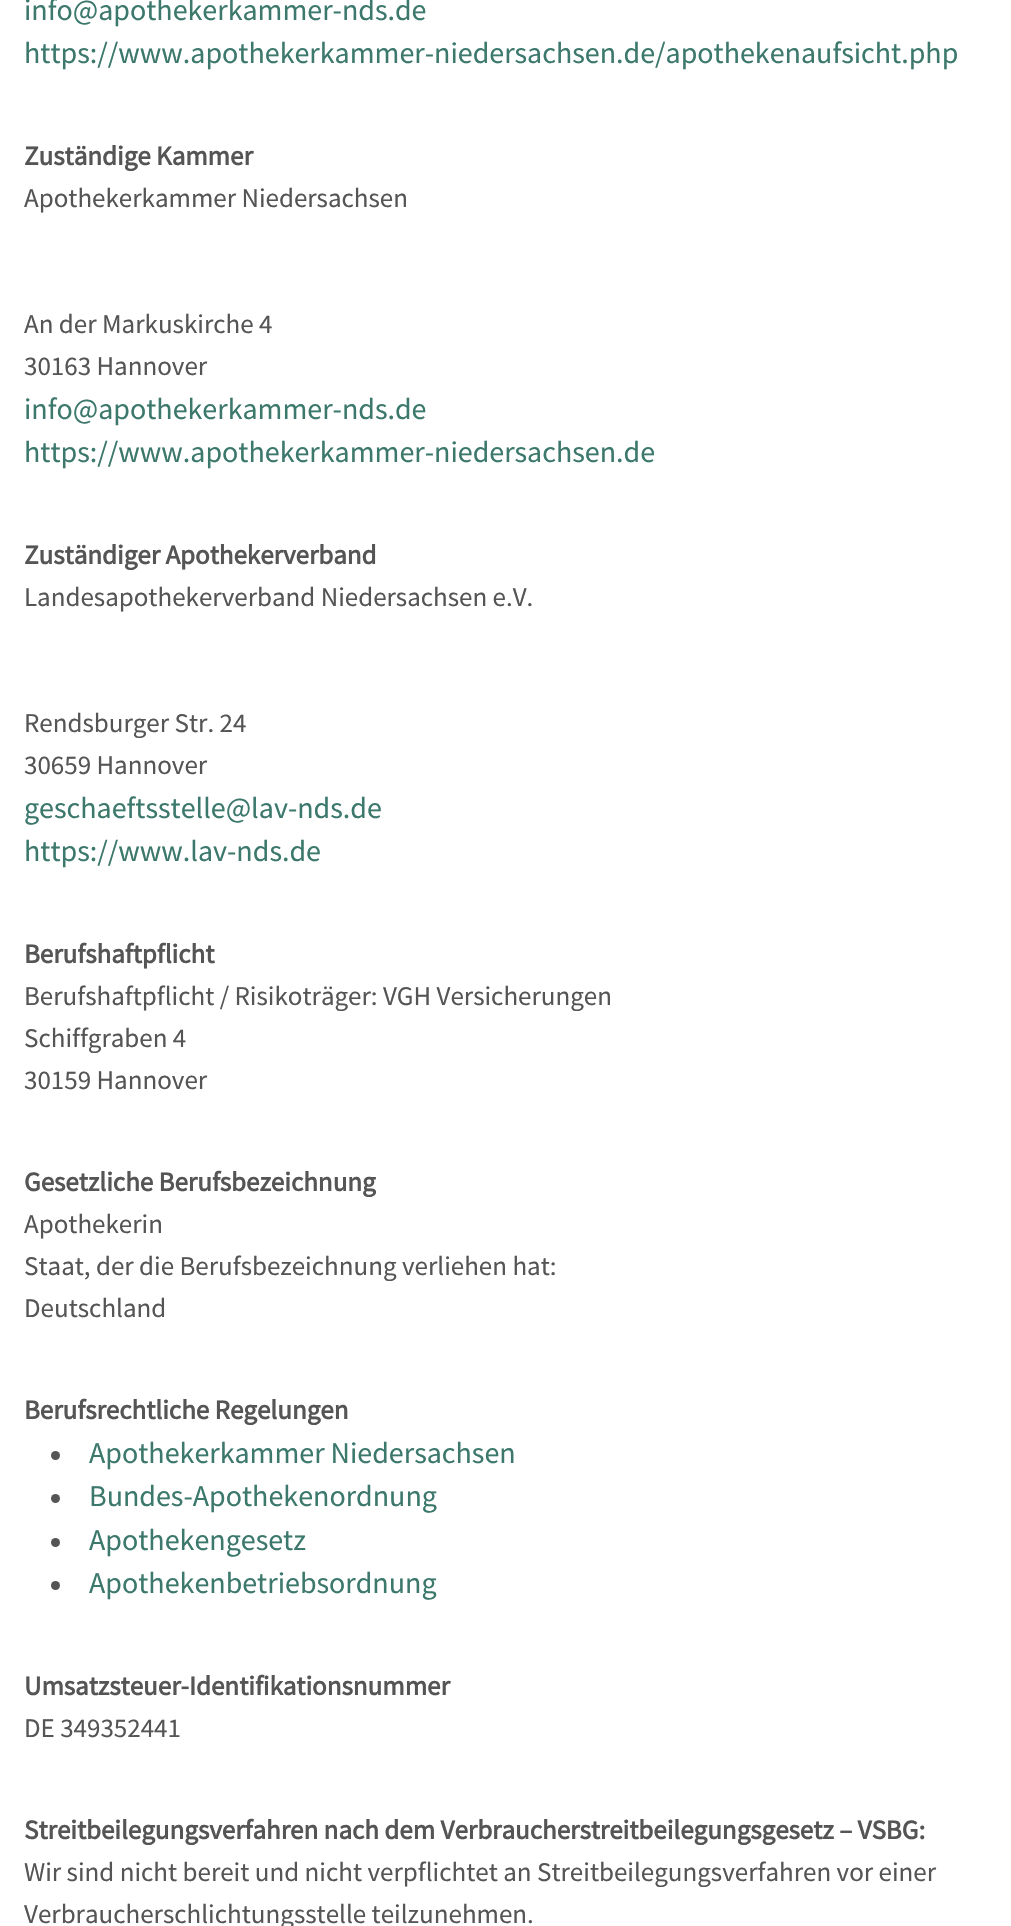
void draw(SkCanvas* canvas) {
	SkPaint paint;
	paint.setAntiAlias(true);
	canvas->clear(0xffffffff);
	SkFont f1(fontMgr->matchFamilyStyle("Source Sans Pro", SkFontStyle::Normal()), 30);
	f1.setSubpixel(true);
	paint.setColor(0xff3c786c);
	canvas->drawString("info@apothekerkammer-nds.de", 24, 20, f1, paint);
	canvas->drawString("https://www.apothekerkammer-niedersachsen.de/apothekenaufsicht.php", 24, 63, f1, paint);
	SkFont f2(fontMgr->matchFamilyStyle("Source Sans Pro", SkFontStyle::Bold()), 27);
	f2.setSubpixel(true);
	paint.setColor(0xff555555);
	canvas->drawString("Zuständige Kammer", 24, 165, f2, paint);
	SkFont f3(fontMgr->matchFamilyStyle("Source Sans Pro", SkFontStyle::Normal()), 27);
	f3.setSubpixel(true);
	canvas->drawString("Apothekerkammer Niedersachsen", 24, 207, f3, paint);
	canvas->drawString("An der Markuskirche 4", 24, 333, f3, paint);
	canvas->drawString("30163 Hannover", 24, 375, f3, paint);
	paint.setColor(0xff3c786c);
	canvas->drawString("info@apothekerkammer-nds.de", 24, 419, f1, paint);
	canvas->drawString("https://www.apothekerkammer-niedersachsen.de", 24, 462, f1, paint);
	paint.setColor(0xff555555);
	canvas->drawString("Zuständiger Apothekerverband", 24, 564, f2, paint);
	canvas->drawString("Landesapothekerverband Niedersachsen e.V.", 24, 606, f3, paint);
	canvas->drawString("Rendsburger Str. 24", 24, 732, f3, paint);
	canvas->drawString("30659 Hannover", 24, 774, f3, paint);
	paint.setColor(0xff3c786c);
	canvas->drawString("geschaeftsstelle@lav-nds.de", 24, 818, f1, paint);
	canvas->drawString("https://www.lav-nds.de", 24, 861, f1, paint);
	paint.setColor(0xff555555);
	canvas->drawString("Berufshaftpflicht", 24, 963, f2, paint);
	canvas->drawString("Berufshaftpflicht / Risikoträger: VGH Versicherungen", 24, 1005, f3, paint);
	canvas->drawString("Schiffgraben 4", 24, 1047, f3, paint);
	canvas->drawString("30159 Hannover", 24, 1089, f3, paint);
	canvas->drawString("Gesetzliche Berufsbezeichnung", 24, 1191, f2, paint);
	canvas->drawString("Apothekerin", 24, 1233, f3, paint);
	canvas->drawString("Staat, der die Berufsbezeichnung verliehen hat:", 24, 1275, f3, paint);
	canvas->drawString("Deutschland", 24, 1317, f3, paint);
	canvas->drawString("Berufsrechtliche Regelungen", 24, 1419, f2, paint);
	canvas->drawCircle(55.5, 1455.5, 4.5, paint);
	paint.setColor(0xff3c786c);
	canvas->drawString("Apothekerkammer Niedersachsen", 89, 1463, f1, paint);
	paint.setColor(0xff555555);
	canvas->drawCircle(55.5, 1498.5, 4.5, paint);
	paint.setColor(0xff3c786c);
	canvas->drawString("Bundes-Apothekenordnung", 89, 1506, f1, paint);
	paint.setColor(0xff555555);
	canvas->drawCircle(55.5, 1542.5, 4.5, paint);
	paint.setColor(0xff3c786c);
	canvas->drawString("Apothekengesetz", 89, 1550, f1, paint);
	paint.setColor(0xff555555);
	canvas->drawCircle(55.5, 1585.5, 4.5, paint);
	paint.setColor(0xff3c786c);
	canvas->drawString("Apothekenbetriebsordnung", 89, 1593, f1, paint);
	paint.setColor(0xff555555);
	canvas->drawString("Umsatzsteuer-Identifikationsnummer", 24, 1695, f2, paint);
	canvas->drawString("DE 349352441", 24, 1737, f3, paint);
	canvas->drawString("Streitbeilegungsverfahren nach dem Verbraucherstreitbeilegungsgesetz – VSBG:", 24, 1839, f2, paint);
	canvas->drawString("Wir sind nicht bereit und nicht verpflichtet an Streitbeilegungsverfahren vor einer", 24, 1881, f3, paint);
	canvas->drawString("Verbraucherschlichtungsstelle teilzunehmen.", 24, 1923, f3, paint);
}
